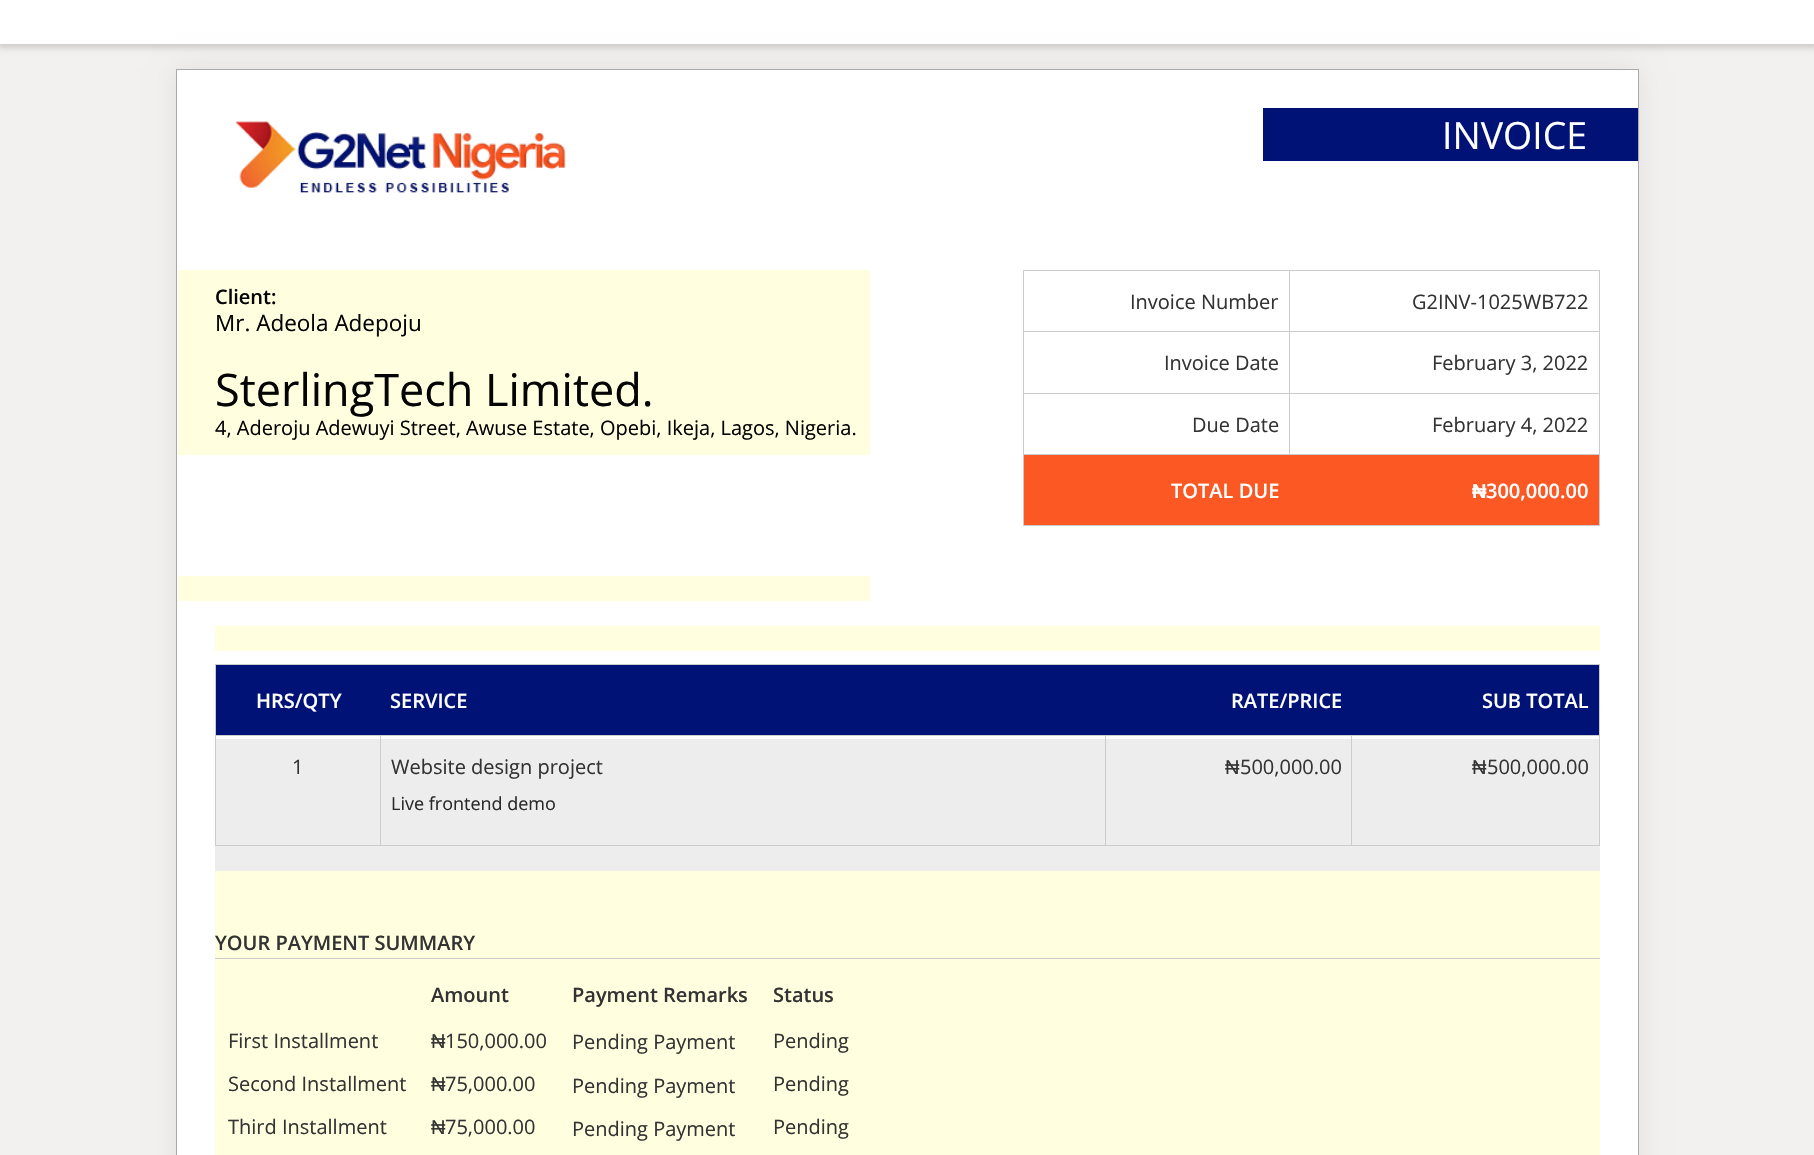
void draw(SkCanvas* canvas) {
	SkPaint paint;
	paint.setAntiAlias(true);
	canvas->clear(0xfff2f1ef);
	paint.setColor(0x26000000);
	paint.setMaskFilter(SkMaskFilter::MakeBlur(kNormal_SkBlurStyle, 3));
	canvas->drawRect(SkRect::MakeXYWH(-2, -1, 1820, 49), paint);
	paint.setMaskFilter(nullptr);
	paint.setColor(0xffffffff);
	canvas->drawRect(SkRect::MakeXYWH(0, 0, 1814, 44), paint);
	paint.setColor(0x12000000);
	paint.setMaskFilter(SkMaskFilter::MakeBlur(kNormal_SkBlurStyle, 12.5));
	canvas->drawRect(SkRect::MakeXYWH(176, 69, 1463, 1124), paint);
	paint.setMaskFilter(nullptr);
	paint.setColor(0xffffffff);
	canvas->drawRect(SkRect::MakeXYWH(176.5, 69.5, 1462, 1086), paint);
	paint.setStroke(true);
	paint.setStrokeWidth(1);
	paint.setColor(0xffaaaaaa);
	canvas->drawRect(SkRect::MakeXYWH(176.5, 69.5, 1462, 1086), paint);
	canvas->drawImageRect(SkImages::DeferredFromEncodedData(SkData::MakeFromFileName("img1.png")), SkRect::MakeXYWH(235, 121, 331, 72), SkSamplingOptions());
	paint.setStroke(false);
	paint.setColor(0xff011276);
	canvas->drawRect(SkRect::MakeXYWH(1263, 108, 375, 53), paint);
	SkFont f1(fontMgr->matchFamilyStyle("Open Sans", SkFontStyle::Normal()), 37.5);
	f1.setSubpixel(true);
	paint.setColor(0xffffffff);
	canvas->drawString("INVOICE", 1442, 149, f1, paint);
	paint.setColor(0xffffffe0);
	canvas->drawRect(SkRect::MakeXYWH(178, 270, 692, 185), paint);
	SkFont f2(fontMgr->matchFamilyStyle("Open Sans", SkFontStyle(600, SkFontStyle::kNormal_Width, SkFontStyle::kUpright_Slant)), 20);
	f2.setSubpixel(true);
	paint.setColor(0xff040404);
	canvas->drawString("Client:", 215, 304, f2, paint);
	SkFont f3(fontMgr->matchFamilyStyle("Open Sans", SkFontStyle::Normal()), 22.5);
	f3.setSubpixel(true);
	canvas->drawString("Mr. Adeola Adepoju", 215, 331, f3, paint);
	SkFont f4(fontMgr->matchFamilyStyle("Open Sans", SkFontStyle::Normal()), 45);
	f4.setSubpixel(true);
	canvas->drawString("SterlingTech Limited.", 215, 406, f4, paint);
	SkFont f5(fontMgr->matchFamilyStyle("Open Sans", SkFontStyle::Normal()), 20);
	f5.setSubpixel(true);
	canvas->drawString("4, Aderoju Adewuyi Street, Awuse Estate, Opebi, Ikeja, Lagos, Nigeria.", 215, 435, f5, paint);
	paint.setColor(0xffcccccc);
	canvas->drawRect(SkRect::MakeXYWH(1023, 270, 577, 1), paint);
	canvas->drawRect(SkRect::MakeXYWH(1599, 270, 1, 256), paint);
	canvas->drawRect(SkRect::MakeXYWH(1023, 525, 577, 1), paint);
	canvas->drawRect(SkRect::MakeXYWH(1023, 270, 1, 256), paint);
	paint.setColor(0xff333333);
	canvas->drawString("Invoice Number", 1130, 309, f5, paint);
	paint.setColor(0xffcccccc);
	canvas->drawRect(SkRect::MakeXYWH(1289, 331, 311, 1), paint);
	canvas->drawRect(SkRect::MakeXYWH(1289, 393, 311, 1), paint);
	canvas->drawRect(SkRect::MakeXYWH(1289, 454, 311, 1), paint);
	canvas->drawRect(SkRect::MakeXYWH(1289, 393, 1, 62), paint);
	canvas->drawRect(SkRect::MakeXYWH(1023, 393, 267, 1), paint);
	canvas->drawRect(SkRect::MakeXYWH(1289, 331, 1, 63), paint);
	canvas->drawRect(SkRect::MakeXYWH(1023, 331, 267, 1), paint);
	canvas->drawRect(SkRect::MakeXYWH(1289, 270, 1, 63), paint);
	paint.setColor(0xff333333);
	canvas->drawString("G2INV-1025WB722", 1412, 309, f5, paint);
	canvas->drawString("Invoice Date", 1164, 370, f5, paint);
	canvas->drawString("February 3, 2022", 1432, 370, f5, paint);
	paint.setColor(0xffcccccc);
	canvas->drawRect(SkRect::MakeXYWH(1023, 454, 267, 1), paint);
	paint.setColor(0xff333333);
	canvas->drawString("Due Date", 1192, 432, f5, paint);
	canvas->drawString("February 4, 2022", 1432, 432, f5, paint);
	paint.setColor(0xfffb5824);
	canvas->drawRect(SkRect::MakeXYWH(1024, 455, 575, 70), paint);
	paint.setColor(0xffffffff);
	canvas->drawString("TOTAL DUE", 1171, 498, f2, paint);
	SkFont f6(fontMgr->matchFamilyStyle("Liberation Sans", SkFontStyle::Bold()), 20);
	f6.setSubpixel(true);
	canvas->drawString("₦", 1472, 498, f6, paint);
	canvas->drawString("300,000.00", 1486, 498, f2, paint);
	paint.setColor(0xffffffe0);
	canvas->drawRect(SkRect::MakeXYWH(178, 576, 692, 25), paint);
	canvas->drawRect(SkRect::MakeXYWH(215, 626, 1385, 25), paint);
	paint.setColor(0xffcccccc);
	canvas->drawRect(SkRect::MakeXYWH(215, 664, 1385, 1), paint);
	paint.setColor(0xffededed);
	canvas->drawRect(SkRect::MakeXYWH(215, 739, 1385, 132), paint);
	paint.setColor(0xffcccccc);
	canvas->drawRect(SkRect::MakeXYWH(1599, 664, 1, 182), paint);
	canvas->drawRect(SkRect::MakeXYWH(215, 845, 1385, 1), paint);
	canvas->drawRect(SkRect::MakeXYWH(215, 664, 1, 182), paint);
	paint.setColor(0xff011276);
	canvas->drawRect(SkRect::MakeXYWH(216, 665, 1383, 70), paint);
	paint.setColor(0xffffffff);
	canvas->drawString("HRS/QTY", 256, 708, f2, paint);
	canvas->drawString("SERVICE", 390, 708, f2, paint);
	canvas->drawString("RATE/PRICE", 1231, 708, f2, paint);
	canvas->drawString("SUB TOTAL", 1482, 708, f2, paint);
	paint.setColor(0xffcccccc);
	canvas->drawRect(SkRect::MakeXYWH(1351, 735, 249, 1), paint);
	canvas->drawRect(SkRect::MakeXYWH(1351, 735, 1, 111), paint);
	canvas->drawRect(SkRect::MakeXYWH(1105, 735, 248, 1), paint);
	canvas->drawRect(SkRect::MakeXYWH(1105, 735, 1, 111), paint);
	canvas->drawRect(SkRect::MakeXYWH(380, 735, 726, 1), paint);
	canvas->drawRect(SkRect::MakeXYWH(380, 735, 1, 111), paint);
	canvas->drawRect(SkRect::MakeXYWH(215, 735, 166, 1), paint);
	paint.setColor(0xff333333);
	canvas->drawString("1", 292, 774, f5, paint);
	canvas->drawString("Website design project", 391, 774, f5, paint);
	SkFont f7(fontMgr->matchFamilyStyle("Open Sans", SkFontStyle::Normal()), 18);
	f7.setSubpixel(true);
	paint.setColor(0xff2a2828);
	canvas->drawString("Live frontend demo", 391, 810, f7, paint);
	SkFont f8(fontMgr->matchFamilyStyle("Liberation Sans", SkFontStyle::Normal()), 20);
	f8.setSubpixel(true);
	paint.setColor(0xff333333);
	canvas->drawString("₦", 1225, 774, f8, paint);
	canvas->drawString("500,000.00", 1240, 774, f5, paint);
	canvas->drawString("₦", 1472, 774, f8, paint);
	canvas->drawString("500,000.00", 1487, 774, f5, paint);
	paint.setColor(0xffffffe0);
	canvas->drawRect(SkRect::MakeXYWH(215, 871, 1385, 284), paint);
	paint.setColor(0xff333333);
	canvas->drawString("YOUR PAYMENT SUMMARY", 215, 950, f2, paint);
	paint.setColor(0xffcccccc);
	canvas->drawRect(SkRect::MakeXYWH(215, 958, 1385, 1), paint);
	paint.setColor(0xff333333);
	canvas->drawString("Amount", 431, 1002, f2, paint);
	canvas->drawString("Payment Remarks", 572, 1002, f2, paint);
	canvas->drawString("Status", 773, 1002, f2, paint);
	canvas->drawString("First Installment", 228, 1048, f5, paint);
	canvas->drawString("₦", 431, 1048, f8, paint);
	canvas->drawString("150,000.00", 445, 1048, f5, paint);
	canvas->drawString("Pending Payment", 572, 1049, f5, paint);
	canvas->drawString("Pending", 773, 1048, f5, paint);
	canvas->drawString("Second Installment", 228, 1091, f5, paint);
	canvas->drawString("₦", 431, 1091, f8, paint);
	canvas->drawString("75,000.00", 445, 1091, f5, paint);
	canvas->drawString("Pending Payment", 572, 1093, f5, paint);
	canvas->drawString("Pending", 773, 1091, f5, paint);
	canvas->drawString("Third Installment", 228, 1134, f5, paint);
	canvas->drawString("₦", 431, 1134, f8, paint);
	canvas->drawString("75,000.00", 445, 1134, f5, paint);
	canvas->drawString("Pending Payment", 572, 1136, f5, paint);
	canvas->drawString("Pending", 773, 1134, f5, paint);
}
